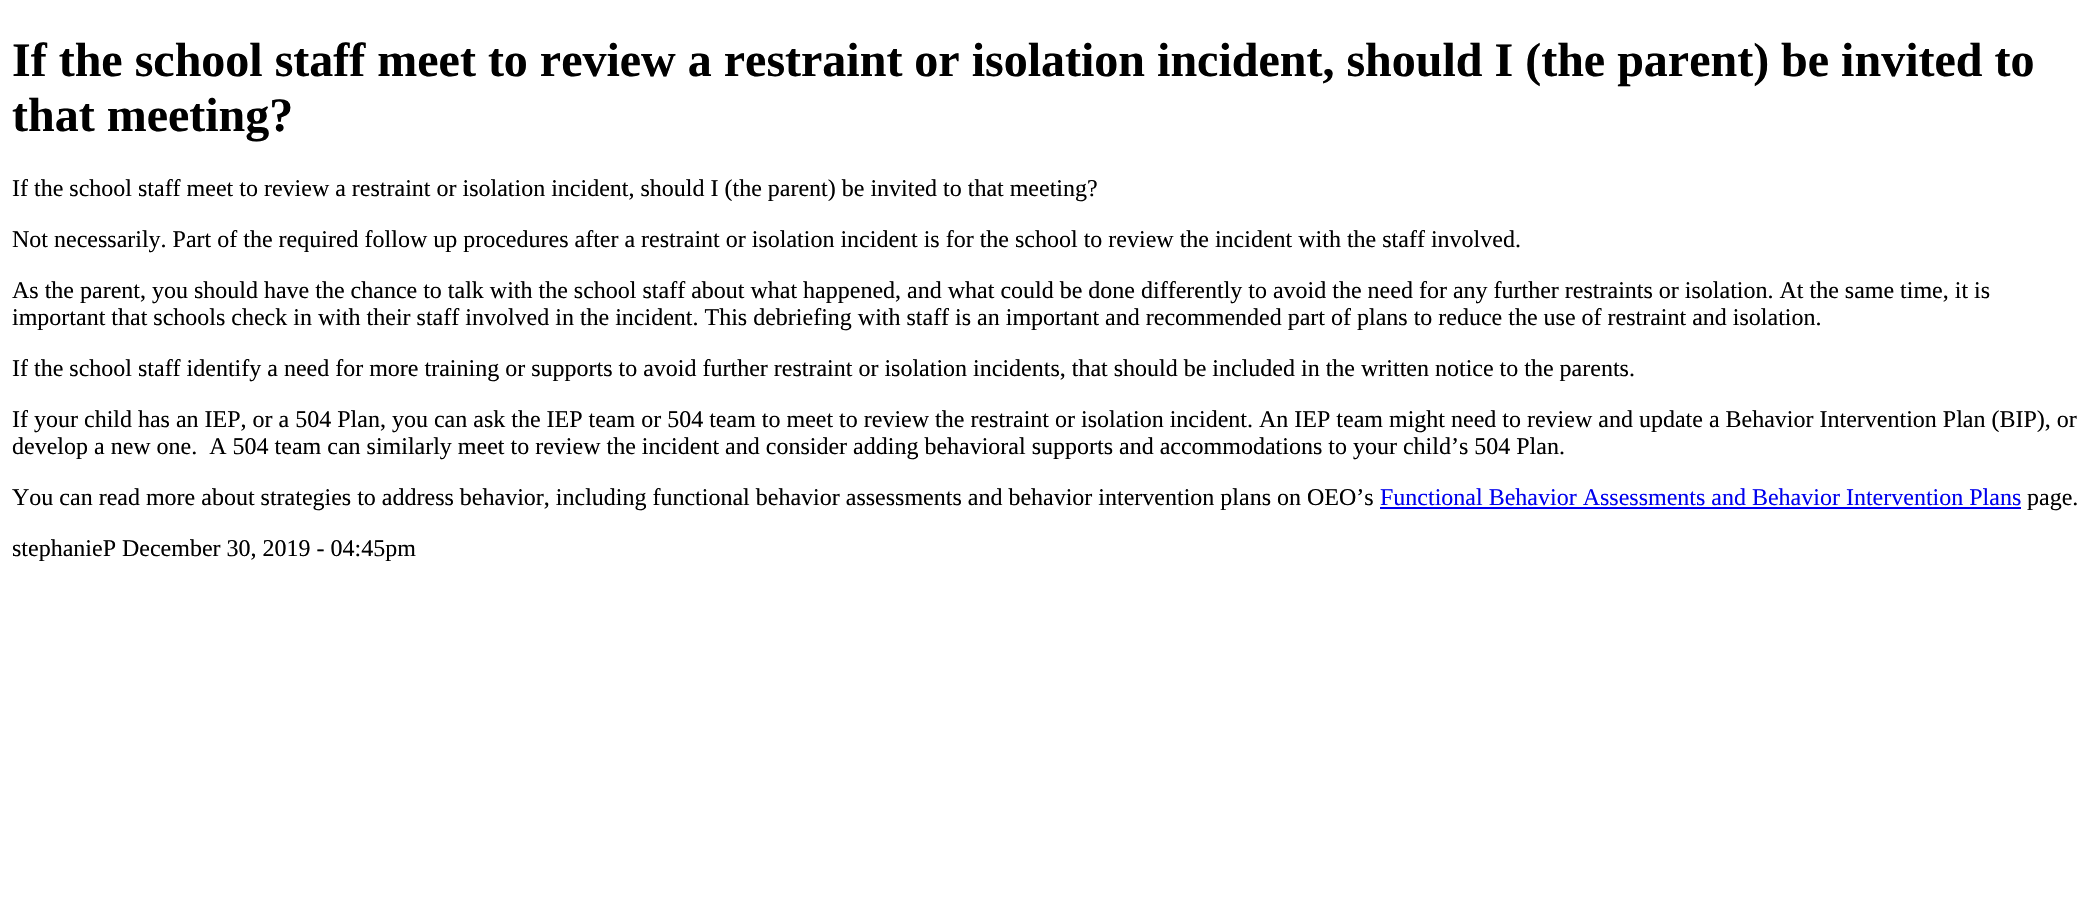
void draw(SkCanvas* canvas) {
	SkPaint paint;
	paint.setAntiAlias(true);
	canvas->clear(0xffffffff);
	SkFont f1(fontMgr->matchFamilyStyle("Liberation Serif", SkFontStyle::Bold()), 48);
	f1.setSubpixel(true);
	paint.setColor(0xff000000);
	canvas->drawString("If the school staff meet to review a restraint or isolation incident, should I (the parent) be invited to", 12, 76, f1, paint);
	canvas->drawString("that meeting?", 12, 131, f1, paint);
	SkFont f2(fontMgr->matchFamilyStyle("Liberation Serif", SkFontStyle::Normal()), 24);
	f2.setSubpixel(true);
	canvas->drawString("If the school staff meet to review a restraint or isolation incident, should I (the parent) be invited to that meeting?", 12, 196, f2, paint);
	canvas->drawString("Not necessarily. Part of the required follow up procedures after a restraint or isolation incident is for the school to review the incident with the staff involved.", 12, 247, f2, paint);
	canvas->drawString("As the parent, you should have the chance to talk with the school staff about what happened, and what could be done differently to avoid the need for any further restraints or isolation. At the same time, it is", 12, 298, f2, paint);
	canvas->drawString("important that schools check in with their staff involved in the incident. This debriefing with staff is an important and recommended part of plans to reduce the use of restraint and isolation.", 12, 325, f2, paint);
	canvas->drawString("If the school staff identify a need for more training or supports to avoid further restraint or isolation incidents, that should be included in the written notice to the parents.", 12, 376, f2, paint);
	canvas->drawString("If your child has an IEP, or a 504 Plan, you can ask the IEP team or 504 team to meet to review the restraint or isolation incident. An IEP team might need to review and update a Behavior Intervention Plan (BIP), or", 12, 427, f2, paint);
	canvas->drawString("develop a new one.  A 504 team can similarly meet to review the incident and consider adding behavioral supports and accommodations to your child’s 504 Plan.", 12, 454, f2, paint);
	canvas->drawString("You can read more about strategies to address behavior, including functional behavior assessments and behavior intervention plans on OEO’s", 12, 505, f2, paint);
	paint.setColor(0xff0000ee);
	canvas->drawString("Functional Behavior Assessments and Behavior Intervention Plans", 1380, 505, f2, paint);
	paint.setColor(0xff000000);
	canvas->drawString("page.", 2027, 505, f2, paint);
	paint.setColor(0xff0000ee);
	canvas->drawRect(SkRect::MakeXYWH(1380, 507, 641, 2), paint);
	paint.setColor(0xff000000);
	canvas->drawString("stephanieP December 30, 2019 - 04:45pm", 12, 556, f2, paint);
}
